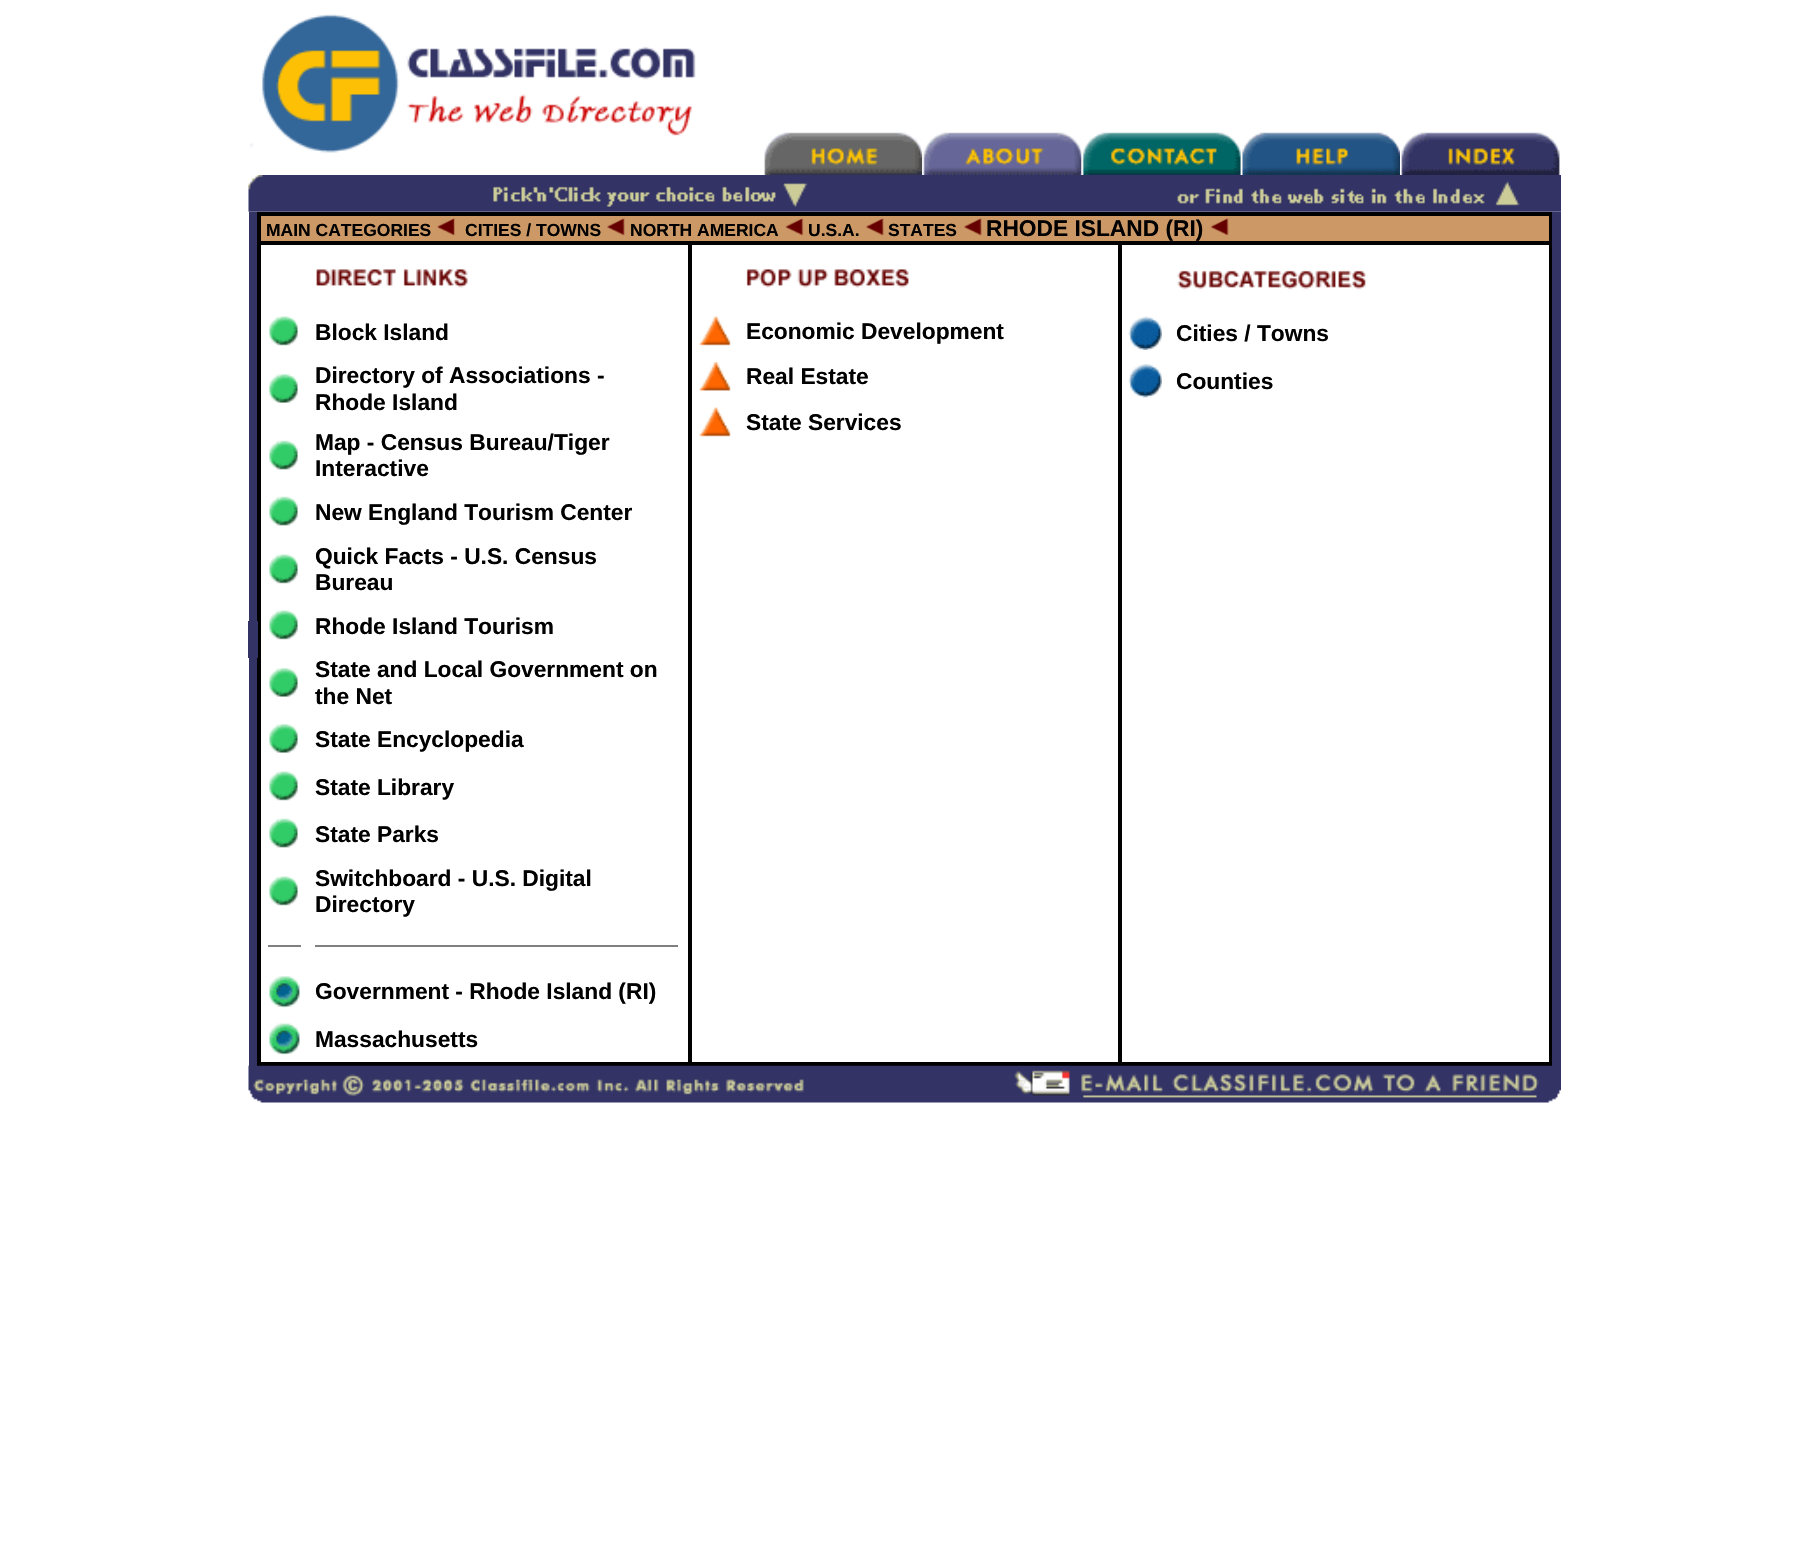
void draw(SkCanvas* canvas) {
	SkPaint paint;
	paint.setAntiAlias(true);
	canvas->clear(0xffffffff);
	canvas->drawImageRect(SkImages::DeferredFromEncodedData(SkData::MakeFromFileName("img1.png")), SkRect::MakeXYWH(250, 14, 446, 139), SkSamplingOptions());
	canvas->drawImageRect(SkImages::DeferredFromEncodedData(SkData::MakeFromFileName("img2.png")), SkRect::MakeXYWH(764, 132, 159, 43), SkSamplingOptions());
	canvas->drawImageRect(SkImages::DeferredFromEncodedData(SkData::MakeFromFileName("img3.png")), SkRect::MakeXYWH(922, 132, 160, 43), SkSamplingOptions());
	canvas->drawImageRect(SkImages::DeferredFromEncodedData(SkData::MakeFromFileName("img4.png")), SkRect::MakeXYWH(1081, 132, 160, 43), SkSamplingOptions());
	canvas->drawImageRect(SkImages::DeferredFromEncodedData(SkData::MakeFromFileName("img5.png")), SkRect::MakeXYWH(1240, 132, 160, 43), SkSamplingOptions());
	canvas->drawImageRect(SkImages::DeferredFromEncodedData(SkData::MakeFromFileName("img6.png")), SkRect::MakeXYWH(1401, 132, 159, 43), SkSamplingOptions());
	canvas->drawImageRect(SkImages::DeferredFromEncodedData(SkData::MakeFromFileName("img7.png")), SkRect::MakeXYWH(248, 175, 1313, 37), SkSamplingOptions());
	paint.setColor(0xff333366);
	canvas->drawRect(SkRect::MakeXYWH(249, 212, 8, 854), paint);
	paint.setStroke(true);
	paint.setStrokeWidth(2);
	paint.setColor(0xff000000);
	canvas->drawRect(SkRect::MakeXYWH(258, 213, 1293, 852), paint);
	paint.setStroke(false);
	paint.setColor(0xff333366);
	canvas->drawRect(SkRect::MakeXYWH(248, 621, 10, 37), paint);
	canvas->drawRect(SkRect::MakeXYWH(1552, 212, 9, 854), paint);
	paint.setColor(0xffcc9966);
	canvas->drawRect(SkRect::MakeXYWH(260, 215, 1290, 27), paint);
	paint.setStroke(true);
	paint.setColor(0xff000000);
	canvas->drawRect(SkRect::MakeXYWH(260, 215, 1290, 27), paint);
	SkFont f1(fontMgr->matchFamilyStyle("Liberation Sans", SkFontStyle::Bold()), 17.5);
	f1.setSubpixel(true);
	paint.setStroke(false);
	canvas->drawString("MAIN CATEGORIES", 266, 236, f1, paint);
	canvas->drawImageRect(SkImages::DeferredFromEncodedData(SkData::MakeFromFileName("img8.png")), SkRect::MakeXYWH(437, 218, 18, 18), SkSamplingOptions());
	canvas->drawString("CITIES / TOWNS", 465, 236, f1, paint);
	canvas->drawImageRect(SkImages::DeferredFromEncodedData(SkData::MakeFromFileName("img9.png")), SkRect::MakeXYWH(606, 218, 19, 18), SkSamplingOptions());
	canvas->drawString("NORTH AMERICA", 630, 236, f1, paint);
	canvas->drawImageRect(SkImages::DeferredFromEncodedData(SkData::MakeFromFileName("img10.png")), SkRect::MakeXYWH(785, 218, 19, 18), SkSamplingOptions());
	canvas->drawString("U.S.A.", 808, 236, f1, paint);
	canvas->drawImageRect(SkImages::DeferredFromEncodedData(SkData::MakeFromFileName("img9.png")), SkRect::MakeXYWH(865, 218, 19, 18), SkSamplingOptions());
	canvas->drawString("STATES", 888, 236, f1, paint);
	canvas->drawImageRect(SkImages::DeferredFromEncodedData(SkData::MakeFromFileName("img9.png")), SkRect::MakeXYWH(963, 218, 19, 18), SkSamplingOptions());
	SkFont f2(fontMgr->matchFamilyStyle("Liberation Sans", SkFontStyle::Bold()), 22.75);
	f2.setSubpixel(true);
	canvas->drawString("RHODE ISLAND (RI)", 986, 236, f2, paint);
	canvas->drawImageRect(SkImages::DeferredFromEncodedData(SkData::MakeFromFileName("img11.png")), SkRect::MakeXYWH(1210, 218, 19, 18), SkSamplingOptions());
	paint.setStroke(true);
	canvas->drawRect(SkRect::MakeXYWH(260, 244, 429, 819), paint);
	canvas->drawImageRect(SkImages::DeferredFromEncodedData(SkData::MakeFromFileName("img12.png")), SkRect::MakeXYWH(316, 269, 152, 19), SkSamplingOptions());
	canvas->drawImageRect(SkImages::DeferredFromEncodedData(SkData::MakeFromFileName("img13.png")), SkRect::MakeXYWH(269, 316, 29, 30), SkSamplingOptions());
	paint.setStroke(false);
	canvas->drawString("Block Island", 315, 340, f2, paint);
	canvas->drawImageRect(SkImages::DeferredFromEncodedData(SkData::MakeFromFileName("img14.png")), SkRect::MakeXYWH(269, 374, 29, 29), SkSamplingOptions());
	canvas->drawString("Directory of Associations -", 315, 383, f2, paint);
	canvas->drawString("Rhode Island", 315, 410, f2, paint);
	canvas->drawImageRect(SkImages::DeferredFromEncodedData(SkData::MakeFromFileName("img15.png")), SkRect::MakeXYWH(269, 440, 29, 30), SkSamplingOptions());
	canvas->drawString("Map - Census Bureau/Tiger", 315, 450, f2, paint);
	canvas->drawString("Interactive", 315, 476, f2, paint);
	canvas->drawImageRect(SkImages::DeferredFromEncodedData(SkData::MakeFromFileName("img15.png")), SkRect::MakeXYWH(269, 496, 29, 30), SkSamplingOptions());
	canvas->drawString("New England Tourism Center", 315, 520, f2, paint);
	canvas->drawImageRect(SkImages::DeferredFromEncodedData(SkData::MakeFromFileName("img13.png")), SkRect::MakeXYWH(269, 554, 29, 30), SkSamplingOptions());
	canvas->drawString("Quick Facts - U.S. Census", 315, 564, f2, paint);
	canvas->drawString("Bureau", 315, 590, f2, paint);
	canvas->drawImageRect(SkImages::DeferredFromEncodedData(SkData::MakeFromFileName("img13.png")), SkRect::MakeXYWH(269, 610, 29, 30), SkSamplingOptions());
	canvas->drawString("Rhode Island Tourism", 315, 634, f2, paint);
	canvas->drawImageRect(SkImages::DeferredFromEncodedData(SkData::MakeFromFileName("img14.png")), SkRect::MakeXYWH(269, 668, 29, 29), SkSamplingOptions());
	canvas->drawString("State and Local Government on", 315, 677, f2, paint);
	canvas->drawString("the Net", 315, 704, f2, paint);
	canvas->drawImageRect(SkImages::DeferredFromEncodedData(SkData::MakeFromFileName("img14.png")), SkRect::MakeXYWH(269, 724, 29, 29), SkSamplingOptions());
	canvas->drawString("State Encyclopedia", 315, 747, f2, paint);
	canvas->drawImageRect(SkImages::DeferredFromEncodedData(SkData::MakeFromFileName("img13.png")), SkRect::MakeXYWH(269, 771, 29, 30), SkSamplingOptions());
	canvas->drawString("State Library", 315, 795, f2, paint);
	canvas->drawImageRect(SkImages::DeferredFromEncodedData(SkData::MakeFromFileName("img15.png")), SkRect::MakeXYWH(269, 818, 29, 30), SkSamplingOptions());
	canvas->drawString("State Parks", 315, 842, f2, paint);
	canvas->drawImageRect(SkImages::DeferredFromEncodedData(SkData::MakeFromFileName("img13.png")), SkRect::MakeXYWH(269, 876, 29, 30), SkSamplingOptions());
	canvas->drawString("Switchboard - U.S. Digital", 315, 886, f2, paint);
	canvas->drawString("Directory", 315, 912, f2, paint);
	paint.setColor(0xff808080);
	canvas->drawRect(SkRect::MakeXYWH(268, 945, 33, 2), paint);
	canvas->drawRect(SkRect::MakeXYWH(315, 945, 363, 2), paint);
	canvas->drawImageRect(SkImages::DeferredFromEncodedData(SkData::MakeFromFileName("img16.png")), SkRect::MakeXYWH(269, 976, 31, 32), SkSamplingOptions());
	paint.setColor(0xff000000);
	canvas->drawString("Government - Rhode Island (RI)", 315, 999, f2, paint);
	canvas->drawImageRect(SkImages::DeferredFromEncodedData(SkData::MakeFromFileName("img17.png")), SkRect::MakeXYWH(269, 1023, 31, 33), SkSamplingOptions());
	canvas->drawString("Massachusetts", 315, 1047, f2, paint);
	paint.setStroke(true);
	canvas->drawRect(SkRect::MakeXYWH(691, 244, 428, 819), paint);
	canvas->drawImageRect(SkImages::DeferredFromEncodedData(SkData::MakeFromFileName("img18.png")), SkRect::MakeXYWH(746, 269, 163, 19), SkSamplingOptions());
	canvas->drawImageRect(SkImages::DeferredFromEncodedData(SkData::MakeFromFileName("img19.png")), SkRect::MakeXYWH(699, 316, 32, 30), SkSamplingOptions());
	paint.setStroke(false);
	canvas->drawString("Economic Development", 746, 339, f2, paint);
	canvas->drawImageRect(SkImages::DeferredFromEncodedData(SkData::MakeFromFileName("img20.png")), SkRect::MakeXYWH(699, 361, 32, 30), SkSamplingOptions());
	canvas->drawString("Real Estate", 746, 384, f2, paint);
	canvas->drawImageRect(SkImages::DeferredFromEncodedData(SkData::MakeFromFileName("img19.png")), SkRect::MakeXYWH(699, 407, 32, 30), SkSamplingOptions());
	canvas->drawString("State Services", 746, 430, f2, paint);
	paint.setStroke(true);
	canvas->drawRect(SkRect::MakeXYWH(1121, 244, 429, 819), paint);
	canvas->drawImageRect(SkImages::DeferredFromEncodedData(SkData::MakeFromFileName("img21.png")), SkRect::MakeXYWH(1177, 270, 189, 20), SkSamplingOptions());
	canvas->drawImageRect(SkImages::DeferredFromEncodedData(SkData::MakeFromFileName("img22.png")), SkRect::MakeXYWH(1128, 316, 34, 34), SkSamplingOptions());
	paint.setStroke(false);
	canvas->drawString("Cities / Towns", 1176, 341, f2, paint);
	canvas->drawImageRect(SkImages::DeferredFromEncodedData(SkData::MakeFromFileName("img23.png")), SkRect::MakeXYWH(1128, 364, 34, 34), SkSamplingOptions());
	canvas->drawString("Counties", 1176, 389, f2, paint);
	canvas->drawImageRect(SkImages::DeferredFromEncodedData(SkData::MakeFromFileName("img24.png")), SkRect::MakeXYWH(248, 1065, 1313, 38), SkSamplingOptions());
}
